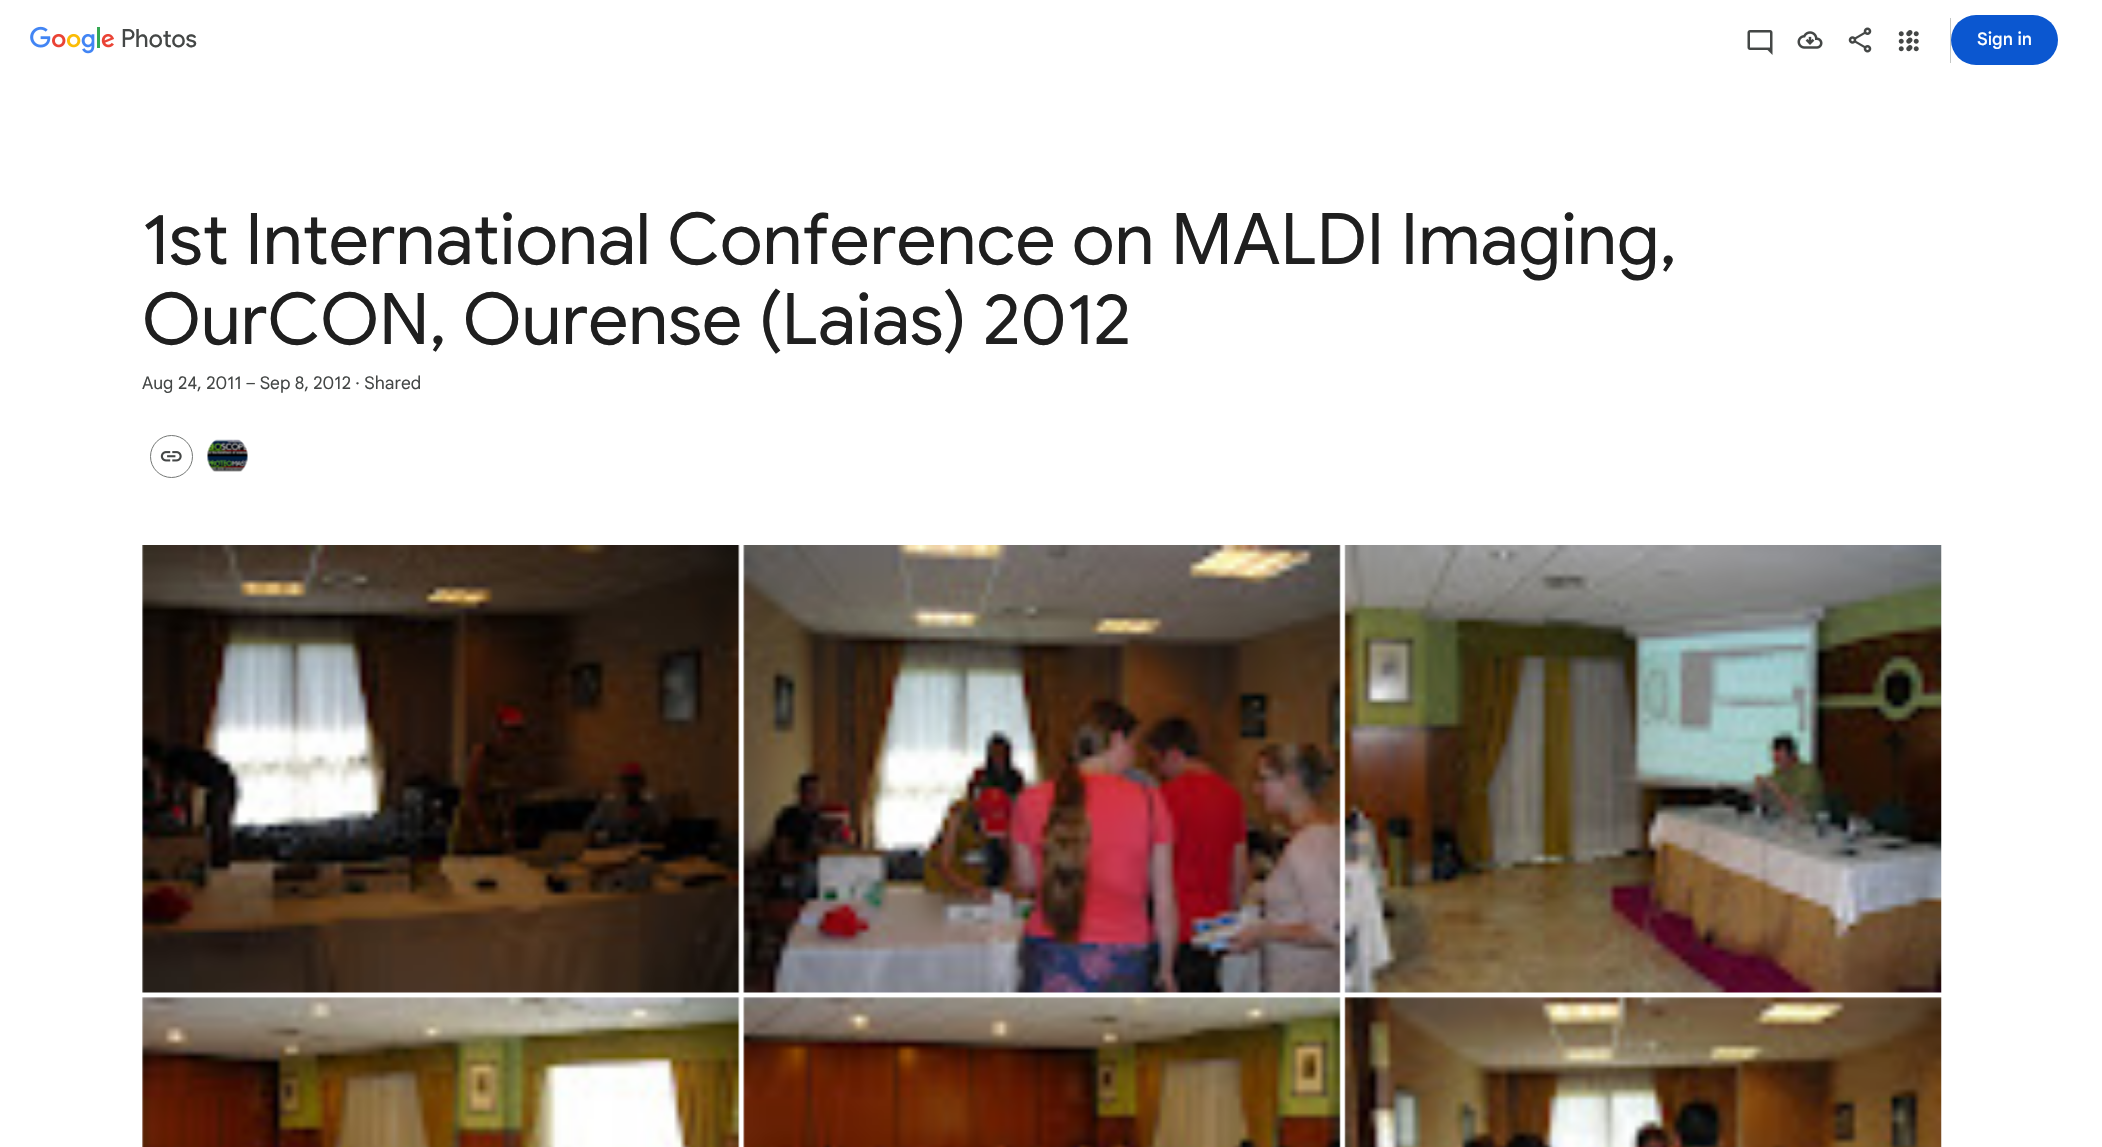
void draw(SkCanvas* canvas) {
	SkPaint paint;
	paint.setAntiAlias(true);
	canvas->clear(0xffffffff);
	canvas->drawImageRect(SkImages::DeferredFromEncodedData(SkData::MakeFromFileName("img1.png")), SkRect::MakeXYWH(30, 26, 84, 28), SkSamplingOptions());
	SkFont f1(fontMgr->matchFamilyStyle("Product Sans", SkFontStyle::Normal()), 25);
	f1.setSubpixel(true);
	paint.setColor(0xff444746);
	canvas->drawString("Photos", 121, 47, f1, paint);
	canvas->drawImageRect(SkImages::DeferredFromEncodedData(SkData::MakeFromFileName("img2.png")), SkRect::MakeXYWH(1747, 30, 26, 25), SkSamplingOptions());
	canvas->drawImageRect(SkImages::DeferredFromEncodedData(SkData::MakeFromFileName("img3.png")), SkRect::MakeXYWH(1797, 31, 26, 18), SkSamplingOptions());
	canvas->drawImageRect(SkImages::DeferredFromEncodedData(SkData::MakeFromFileName("img4.png")), SkRect::MakeXYWH(1848, 27, 24, 26), SkSamplingOptions());
	canvas->drawImageRect(SkImages::DeferredFromEncodedData(SkData::MakeFromFileName("img5.png")), SkRect::MakeXYWH(1907, 30, 6, 20), SkSamplingOptions());
	paint.setColor(0xffc4c7c5);
	canvas->drawRect(SkRect::MakeXYWH(1950, 18, 1, 45), paint);
	SkFont f2(fontMgr->matchFamilyStyle("Google Sans", SkFontStyle::Normal()), 71.25);
	f2.setSubpixel(true);
	paint.setColor(0xff1f1f1f);
	canvas->drawString("1st International Conference on MALDI Imaging,", 142, 264, f2, paint);
	canvas->drawString("OurCON, Ourense (Laias) 2012", 142, 344, f2, paint);
	SkFont f3(fontMgr->matchFamilyStyle("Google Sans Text", SkFontStyle::Normal()), 17.5);
	f3.setSubpixel(true);
	paint.setColor(0xff444746);
	canvas->drawString("Aug 24, 2011 – Sep 8, 2012 · Shared", 142, 389, f3, paint);
	paint.setStroke(true);
	paint.setStrokeWidth(1);
	paint.setColor(0xff747775);
	canvas->drawCircle(171.5, 456.5, 21, paint);
	canvas->drawImageRect(SkImages::DeferredFromEncodedData(SkData::MakeFromFileName("img6.png")), SkRect::MakeXYWH(160, 451, 22, 11), SkSamplingOptions());
	canvas->drawImageRect(SkImages::DeferredFromEncodedData(SkData::MakeFromFileName("img7.png")), SkRect::MakeXYWH(207, 439, 41, 33), SkSamplingOptions());
	canvas->drawImageRect(SkImages::DeferredFromEncodedData(SkData::MakeFromFileName("img8.png")), SkRect::MakeXYWH(142, 545, 598, 448), SkSamplingOptions());
	canvas->drawImageRect(SkImages::DeferredFromEncodedData(SkData::MakeFromFileName("img9.png")), SkRect::MakeXYWH(743, 545, 598, 448), SkSamplingOptions());
	canvas->drawImageRect(SkImages::DeferredFromEncodedData(SkData::MakeFromFileName("img10.png")), SkRect::MakeXYWH(1344, 545, 598, 448), SkSamplingOptions());
	canvas->drawImageRect(SkImages::DeferredFromEncodedData(SkData::MakeFromFileName("img11.png")), SkRect::MakeXYWH(142, 997, 598, 150), SkSamplingOptions());
	canvas->drawImageRect(SkImages::DeferredFromEncodedData(SkData::MakeFromFileName("img12.png")), SkRect::MakeXYWH(743, 997, 598, 150), SkSamplingOptions());
	canvas->drawImageRect(SkImages::DeferredFromEncodedData(SkData::MakeFromFileName("img13.png")), SkRect::MakeXYWH(1344, 997, 598, 150), SkSamplingOptions());
	canvas->drawImageRect(SkImages::DeferredFromEncodedData(SkData::MakeFromFileName("img14.png")), SkRect::MakeXYWH(1898, 31, 21, 21), SkSamplingOptions());
	paint.setStroke(false);
	paint.setColor(0xff0b57d0);
	canvas->drawRoundRect(SkRect::MakeXYWH(1951, 15, 107, 50), 25, 25, paint);
	SkFont f4(fontMgr->matchFamilyStyle("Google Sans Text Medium", SkFontStyle(500, SkFontStyle::kNormal_Width, SkFontStyle::kUpright_Slant)), 17.5);
	f4.setSubpixel(true);
	paint.setColor(0xffffffff);
	canvas->drawString("Sign in", 1977, 45, f4, paint);
}
